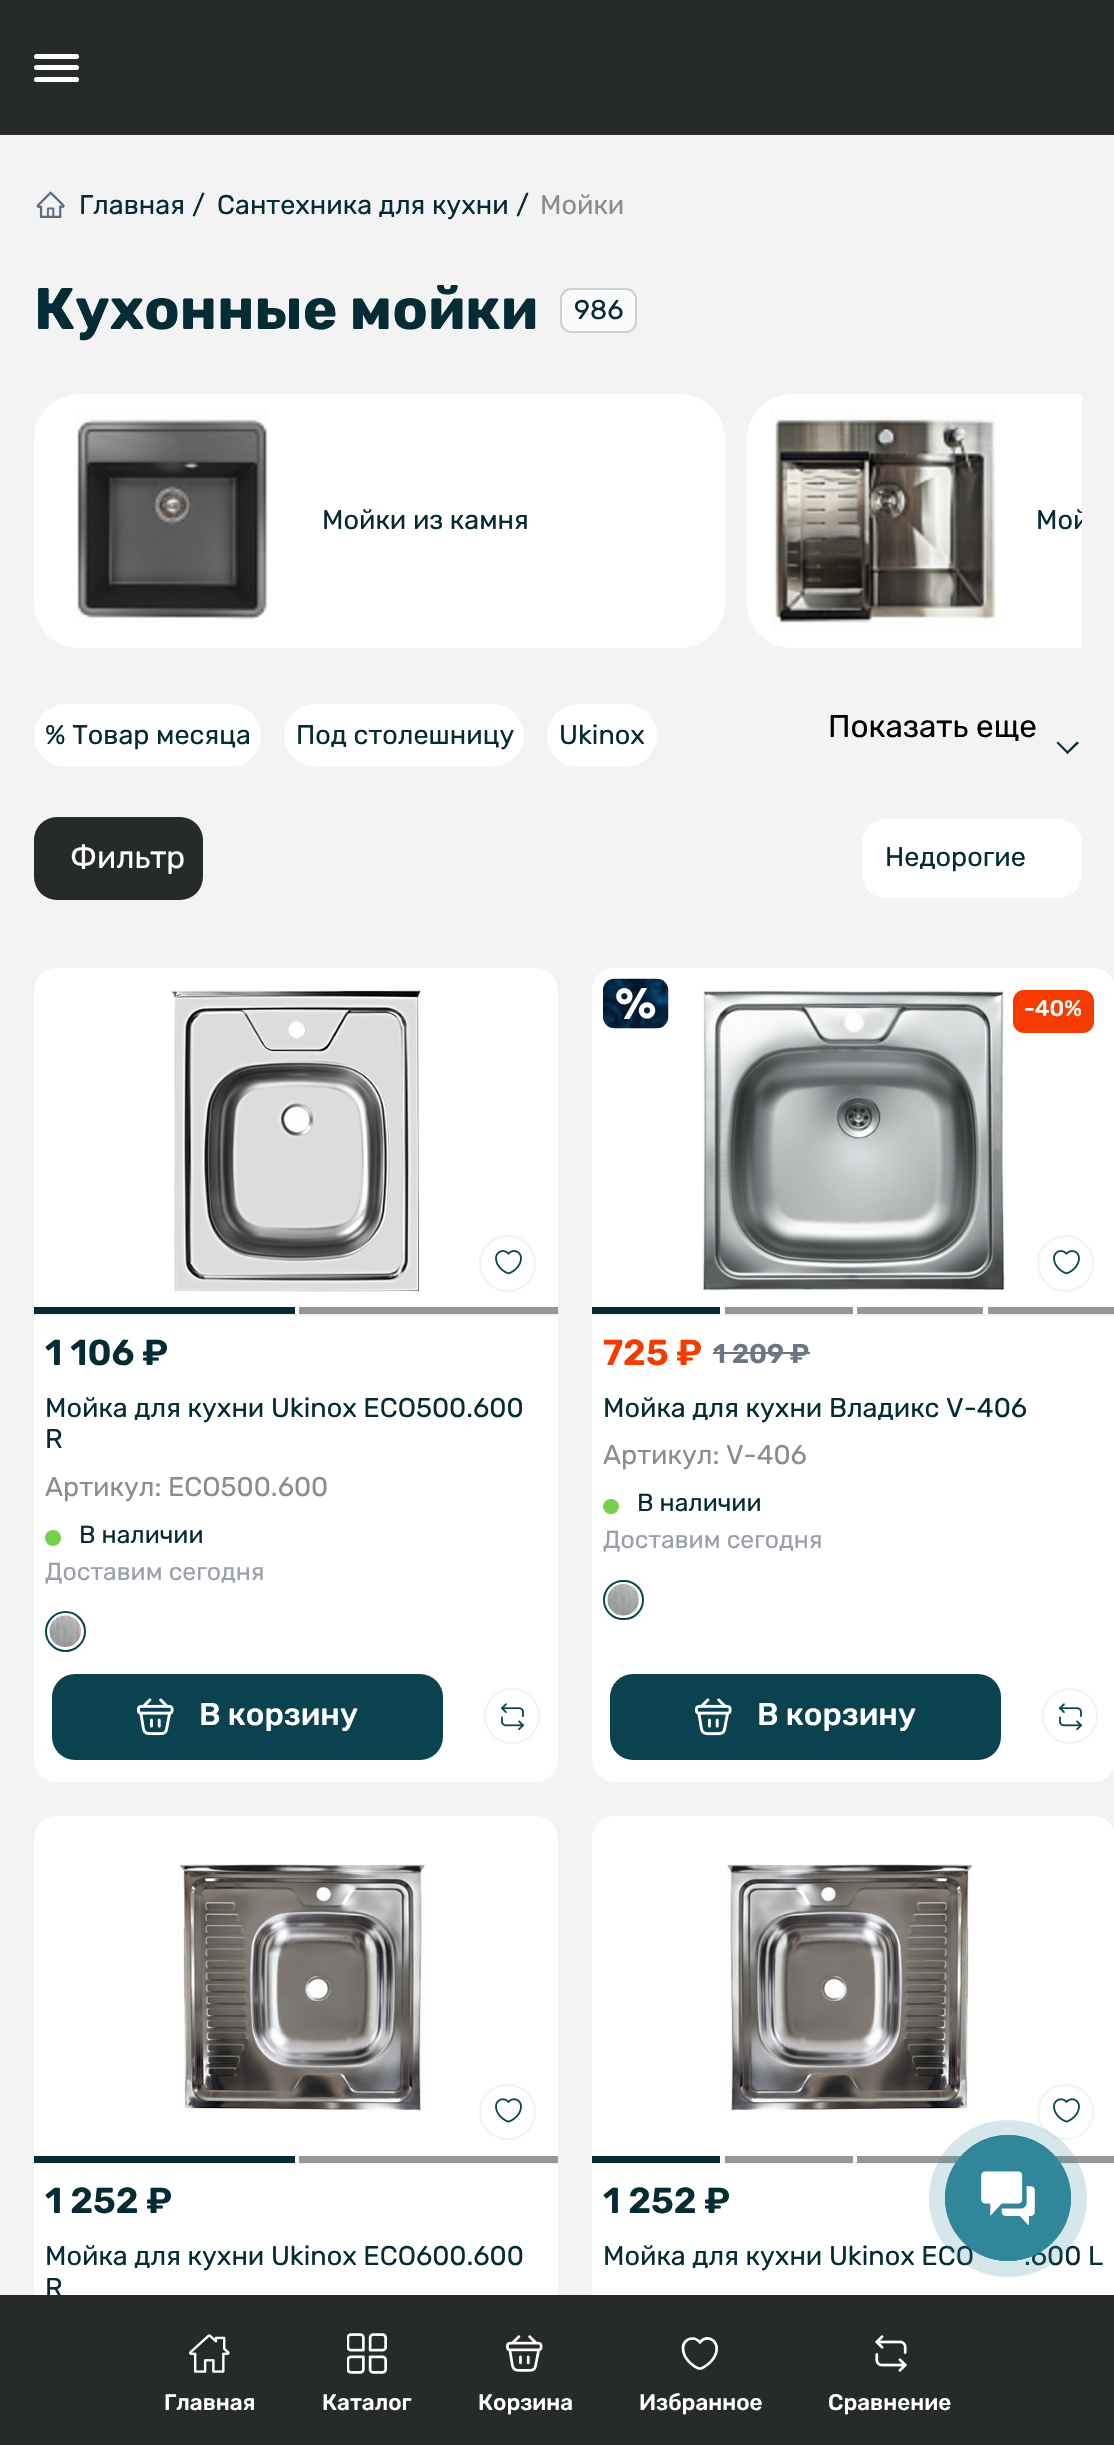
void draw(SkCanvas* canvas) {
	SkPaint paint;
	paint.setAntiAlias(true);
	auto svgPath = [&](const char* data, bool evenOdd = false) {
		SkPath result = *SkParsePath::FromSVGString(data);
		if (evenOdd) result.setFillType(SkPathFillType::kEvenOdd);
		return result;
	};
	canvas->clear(0xfff3f3f3);
	paint.setColor(0xff272a2b);
	canvas->drawRect(SkRect::MakeXYWH(0, 0, 1114, 135), paint);
	paint.setColor(0xffffffff);
	canvas->drawRoundRect(SkRect::MakeXYWH(34, 54, 45, 5), 2.5, 2.5, paint);
	canvas->drawRoundRect(SkRect::MakeXYWH(34, 65, 45, 5), 2.5, 2.5, paint);
	canvas->drawRoundRect(SkRect::MakeXYWH(34, 77, 45, 5), 2.5, 2.5, paint);
	canvas->drawImageRect(SkImages::DeferredFromEncodedData(SkData::MakeFromFileName("img1.png")), SkRect::MakeXYWH(36, 191, 29, 27), SkSamplingOptions());
	SkFont f1(fontMgr->matchFamilyStyle("Rubik", SkFontStyle::Normal()), 27);
	f1.setSubpixel(true);
	paint.setColor(0xff052b34);
	canvas->drawString("Главная", 79, 214, f1, paint);
	canvas->drawString("/", 192, 214, f1, paint);
	canvas->drawString("Сантехника для кухни", 217, 214, f1, paint);
	canvas->drawString("/", 516, 214, f1, paint);
	paint.setColor(0xff8c8c8c);
	canvas->drawString("Мойки", 540, 214, f1, paint);
	SkFont f2(fontMgr->matchFamilyStyle("Rubik", SkFontStyle::Bold()), 58.5);
	f2.setSubpixel(true);
	paint.setColor(0xff052b34);
	canvas->drawString("Кухонные мойки", 34, 329, f2, paint);
	paint.setColor(0xfffafafa);
	canvas->drawRoundRect(SkRect::MakeXYWH(561, 289, 75, 43), 10, 10, paint);
	paint.setStroke(true);
	paint.setStrokeWidth(2);
	paint.setColor(0xffc9d1d2);
	canvas->drawRoundRect(SkRect::MakeXYWH(561, 289, 75, 43), 10, 10, paint);
	paint.setStroke(false);
	paint.setColor(0xff052b34);
	canvas->drawString("986", 574, 319, f1, paint);
	paint.setColor(0xffffffff);
	canvas->drawRoundRect(SkRect::MakeXYWH(34, 394, 691, 254), 45, 45, paint);
	canvas->drawImageRect(SkImages::DeferredFromEncodedData(SkData::MakeFromFileName("img2.png")), SkRect::MakeXYWH(74, 408, 194, 215), SkSamplingOptions());
	paint.setColor(0xff052b34);
	canvas->drawString("Мойки из камня", 322, 529, f1, paint);
	paint.setColor(0xffffffff);
	canvas->drawPath(svgPath("M792 394H1082V648H792C767 648 747 628 747 603V439C747 414 767 394 792 394Z"), paint);
	canvas->drawImageRect(SkImages::DeferredFromEncodedData(SkData::MakeFromFileName("img3.png")), SkRect::MakeXYWH(769, 408, 227, 224), SkSamplingOptions());
	canvas->save();
	canvas->clipRect(SkRect::MakeXYWH(34, 394, 1048, 254));
	paint.setColor(0xff052b34);
	canvas->drawString("Мой", 1036, 529, f1, paint);
	canvas->restore();
	paint.setColor(0xffffffff);
	canvas->drawRoundRect(SkRect::MakeXYWH(34, 704, 227, 63), 31.5, 31.5, paint);
	paint.setColor(0xff052b34);
	canvas->drawString("% Товар месяца", 45, 744, f1, paint);
	paint.setColor(0xffffffff);
	canvas->drawRoundRect(SkRect::MakeXYWH(284, 704, 240, 63), 31.5, 31.5, paint);
	paint.setColor(0xff052b34);
	canvas->drawString("Под столешницу", 296, 744, f1, paint);
	paint.setColor(0xffffffff);
	canvas->drawRoundRect(SkRect::MakeXYWH(547, 704, 110, 63), 31.5, 31.5, paint);
	paint.setColor(0xff052b34);
	canvas->drawString("Ukinox", 559, 744, f1, paint);
	SkFont f3(fontMgr->matchFamilyStyle("Rubik", SkFontStyle::Normal()), 31.5);
	f3.setSubpixel(true);
	paint.setColor(0xff000000);
	canvas->drawString("Показать еще", 828, 737, f3, paint);
	paint.setColor(0xff052b34);
	canvas->drawPath(svgPath("M1077 741.5L1079 743L1067.5 754L1066 752.5Z"), paint);
	canvas->drawPath(svgPath("M1058 741.5L1069 752.5L1067.5 754L1056.5 743Z"), paint);
	paint.setColor(0xff272a2b);
	canvas->drawRoundRect(SkRect::MakeXYWH(34, 817, 169, 83), 23, 23, paint);
	paint.setColor(0xffffffff);
	canvas->drawString("Фильтр", 70, 868, f3, paint);
	canvas->drawRoundRect(SkRect::MakeXYWH(862, 819, 220, 79), 23, 23, paint);
	paint.setColor(0xff052b34);
	canvas->drawString("Недорогие", 885, 866, f1, paint);
	paint.setColor(0xffffffff);
	canvas->drawRoundRect(SkRect::MakeXYWH(34, 968, 524, 814), 23, 23, paint);
	canvas->drawPath(svgPath("M57 968H535C547.5 968 558 978.5 558 991V1316H34V991C34 978.5 44.5 968 57 968Z"), paint);
	paint.setColor(0xfff3f3f3);
	canvas->drawRect(SkRect::MakeXYWH(34, 1314, 524, 2), paint);
	canvas->drawImageRect(SkImages::DeferredFromEncodedData(SkData::MakeFromFileName("img4.png")), SkRect::MakeXYWH(171, 990, 250, 302), SkSamplingOptions());
	paint.setColor(0xff052b34);
	canvas->drawRect(SkRect::MakeXYWH(34, 1307, 261, 7), paint);
	paint.setColor(0xff979797);
	canvas->drawRect(SkRect::MakeXYWH(299, 1307, 259, 7), paint);
	paint.setStroke(true);
	paint.setColor(0xfff3f3f3);
	canvas->drawCircle(507.5, 1263.5, 27.5, paint);
	canvas->drawImageRect(SkImages::DeferredFromEncodedData(SkData::MakeFromFileName("img5.png")), SkRect::MakeXYWH(495, 1250, 27, 25), SkSamplingOptions());
	SkFont f4(fontMgr->matchFamilyStyle("Rubik", SkFontStyle(600, SkFontStyle::kNormal_Width, SkFontStyle::kUpright_Slant)), 36);
	f4.setSubpixel(true);
	paint.setStroke(false);
	paint.setColor(0xff052b34);
	canvas->drawString("1 106 ₽", 45, 1365, f4, paint);
	canvas->drawString("Мойка для кухни Ukinox ECO500.600", 45, 1417, f1, paint);
	canvas->drawString("R", 45, 1448, f1, paint);
	paint.setColor(0xff8c8c8c);
	canvas->drawString("Артикул: ECO500.600", 45, 1496, f1, paint);
	paint.setColor(0xff75d14a);
	canvas->drawCircle(53, 1538, 8, paint);
	SkFont f5(fontMgr->matchFamilyStyle("Rubik", SkFontStyle::Normal()), 24.75);
	f5.setSubpixel(true);
	paint.setColor(0xff052b34);
	canvas->drawString("В наличии", 79, 1543, f5, paint);
	paint.setColor(0xff9a9fa8);
	canvas->drawString("Доставим сегодня", 45, 1580, f5, paint);
	canvas->drawImageRect(SkImages::DeferredFromEncodedData(SkData::MakeFromFileName("img6.png")), SkRect::MakeXYWH(49, 1615, 32, 32), SkSamplingOptions());
	paint.setStroke(true);
	paint.setColor(0xff0b4250);
	canvas->drawCircle(65.5, 1631.5, 19.5, paint);
	paint.setStroke(false);
	paint.setColor(0xffffffff);
	canvas->drawPath(svgPath("M34 1674H558V1759C558 1771.5 547.5 1782 535 1782H57C44.5 1782 34 1771.5 34 1759Z"), paint);
	paint.setColor(0xff0b4250);
	canvas->drawRoundRect(SkRect::MakeXYWH(52, 1674, 391, 86), 23, 23, paint);
	canvas->drawImageRect(SkImages::DeferredFromEncodedData(SkData::MakeFromFileName("img7.png")), SkRect::MakeXYWH(136, 1698, 38, 38), SkSamplingOptions());
	SkFont f6(fontMgr->matchFamilyStyle("Rubik", SkFontStyle(500, SkFontStyle::kNormal_Width, SkFontStyle::kUpright_Slant)), 31.5);
	f6.setSubpixel(true);
	paint.setColor(0xffffffff);
	canvas->drawString("В корзину", 199, 1725, f6, paint);
	paint.setStroke(true);
	paint.setColor(0xfff3f3f3);
	canvas->drawCircle(512, 1716, 27, paint);
	canvas->drawImageRect(SkImages::DeferredFromEncodedData(SkData::MakeFromFileName("img8.png")), SkRect::MakeXYWH(501, 1703, 23, 27), SkSamplingOptions());
	paint.setStroke(false);
	paint.setColor(0xffffffff);
	canvas->drawRoundRect(SkRect::MakeXYWH(592, 968, 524, 814), 23, 23, paint);
	canvas->drawPath(svgPath("M615 968H1093C1105.5 968 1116 978.5 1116 991V1316H592V991C592 978.5 602.5 968 615 968Z"), paint);
	paint.setColor(0xfff3f3f3);
	canvas->drawRect(SkRect::MakeXYWH(592, 1314, 522, 2), paint);
	canvas->drawImageRect(SkImages::DeferredFromEncodedData(SkData::MakeFromFileName("img9.png")), SkRect::MakeXYWH(603, 978, 66, 51), SkSamplingOptions());
	canvas->drawImageRect(SkImages::DeferredFromEncodedData(SkData::MakeFromFileName("img10.png")), SkRect::MakeXYWH(616, 988, 40, 31), SkSamplingOptions());
	canvas->drawImageRect(SkImages::DeferredFromEncodedData(SkData::MakeFromFileName("img11.png")), SkRect::MakeXYWH(702, 990, 304, 301), SkSamplingOptions());
	paint.setColor(0xff052b34);
	canvas->drawRect(SkRect::MakeXYWH(592, 1307, 128, 7), paint);
	paint.setColor(0xff979797);
	canvas->drawRect(SkRect::MakeXYWH(725, 1307, 128, 7), paint);
	canvas->drawRect(SkRect::MakeXYWH(857, 1307, 126, 7), paint);
	canvas->drawRect(SkRect::MakeXYWH(988, 1307, 126, 7), paint);
	paint.setColor(0xfff63b00);
	canvas->drawRoundRect(SkRect::MakeXYWH(1013, 990, 81, 43), 11, 11, paint);
	SkFont f7(fontMgr->matchFamilyStyle("Rubik", SkFontStyle(500, SkFontStyle::kNormal_Width, SkFontStyle::kUpright_Slant)), 22.5);
	f7.setSubpixel(true);
	paint.setColor(0xffffffff);
	canvas->drawString("-40%", 1024, 1016, f7, paint);
	paint.setStroke(true);
	paint.setColor(0xfff3f3f3);
	canvas->drawCircle(1065.5, 1263.5, 27.5, paint);
	canvas->drawImageRect(SkImages::DeferredFromEncodedData(SkData::MakeFromFileName("img5.png")), SkRect::MakeXYWH(1053, 1250, 27, 25), SkSamplingOptions());
	paint.setStroke(false);
	paint.setColor(0xfff63b00);
	canvas->drawString("725 ₽", 603, 1365, f4, paint);
	SkFont f8(fontMgr->matchFamilyStyle("Rubik", SkFontStyle(600, SkFontStyle::kNormal_Width, SkFontStyle::kUpright_Slant)), 27);
	f8.setSubpixel(true);
	paint.setColor(0xff6c7683);
	canvas->drawString("1 209 ₽", 713, 1363, f8, paint);
	canvas->drawRect(SkRect::MakeXYWH(713, 1352, 97, 2), paint);
	paint.setColor(0xff052b34);
	canvas->drawString("Мойка для кухни Владикс V-406", 603, 1417, f1, paint);
	paint.setColor(0xff8c8c8c);
	canvas->drawString("Артикул: V-406", 603, 1464, f1, paint);
	paint.setColor(0xff75d14a);
	canvas->drawRoundRect(SkRect::MakeXYWH(603, 1499, 16, 15), 7.5, 7.5, paint);
	paint.setColor(0xff052b34);
	canvas->drawString("В наличии", 637, 1511, f5, paint);
	paint.setColor(0xff9a9fa8);
	canvas->drawString("Доставим сегодня", 603, 1548, f5, paint);
	canvas->drawImageRect(SkImages::DeferredFromEncodedData(SkData::MakeFromFileName("img12.png")), SkRect::MakeXYWH(607, 1584, 32, 32), SkSamplingOptions());
	paint.setStroke(true);
	paint.setColor(0xff0b4250);
	canvas->drawRoundRect(SkRect::MakeXYWH(604, 1581, 39, 38), 19, 19, paint);
	paint.setStroke(false);
	paint.setColor(0xffffffff);
	canvas->drawPath(svgPath("M592 1674H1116V1759C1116 1771.5 1105.5 1782 1093 1782H615C602.5 1782 592 1771.5 592 1759Z"), paint);
	paint.setColor(0xff0b4250);
	canvas->drawRoundRect(SkRect::MakeXYWH(610, 1674, 391, 86), 23, 23, paint);
	canvas->drawImageRect(SkImages::DeferredFromEncodedData(SkData::MakeFromFileName("img7.png")), SkRect::MakeXYWH(694, 1698, 38, 38), SkSamplingOptions());
	paint.setColor(0xffffffff);
	canvas->drawString("В корзину", 757, 1725, f6, paint);
	paint.setStroke(true);
	paint.setColor(0xfff3f3f3);
	canvas->drawCircle(1070, 1716, 27, paint);
	canvas->drawImageRect(SkImages::DeferredFromEncodedData(SkData::MakeFromFileName("img8.png")), SkRect::MakeXYWH(1059, 1703, 23, 27), SkSamplingOptions());
	paint.setStroke(false);
	paint.setColor(0xffffffff);
	canvas->drawRoundRect(SkRect::MakeXYWH(34, 1816, 524, 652), 23, 23, paint);
	canvas->drawPath(svgPath("M57 1816H535C547.5 1816 558 1826.5 558 1839V2165H34V1839C34 1826.5 44.5 1816 57 1816Z"), paint);
	paint.setColor(0xfff3f3f3);
	canvas->drawRect(SkRect::MakeXYWH(34, 2162, 524, 2), paint);
	canvas->drawImageRect(SkImages::DeferredFromEncodedData(SkData::MakeFromFileName("img13.png")), SkRect::MakeXYWH(177, 1864, 251, 248), SkSamplingOptions());
	paint.setColor(0xff052b34);
	canvas->drawRect(SkRect::MakeXYWH(34, 2156, 261, 7), paint);
	paint.setColor(0xff979797);
	canvas->drawRect(SkRect::MakeXYWH(299, 2156, 259, 7), paint);
	paint.setStroke(true);
	paint.setColor(0xfff3f3f3);
	canvas->drawRoundRect(SkRect::MakeXYWH(480, 2085, 55, 54), 27, 27, paint);
	canvas->drawImageRect(SkImages::DeferredFromEncodedData(SkData::MakeFromFileName("img14.png")), SkRect::MakeXYWH(495, 2098, 27, 25), SkSamplingOptions());
	paint.setStroke(false);
	paint.setColor(0xff052b34);
	canvas->drawString("1 252 ₽", 45, 2213, f4, paint);
	canvas->drawString("Мойка для кухни Ukinox ECO600.600", 45, 2265, f1, paint);
	canvas->drawString("R", 45, 2297, f1, paint);
	paint.setColor(0xffffffff);
	canvas->drawRoundRect(SkRect::MakeXYWH(592, 1816, 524, 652), 23, 23, paint);
	canvas->drawPath(svgPath("M615 1816H1093C1105.5 1816 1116 1826.5 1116 1839V2165H592V1839C592 1826.5 602.5 1816 615 1816Z"), paint);
	paint.setColor(0xfff3f3f3);
	canvas->drawRect(SkRect::MakeXYWH(592, 2162, 522, 2), paint);
	canvas->drawImageRect(SkImages::DeferredFromEncodedData(SkData::MakeFromFileName("img15.png")), SkRect::MakeXYWH(726, 1864, 247, 248), SkSamplingOptions());
	paint.setColor(0xff052b34);
	canvas->drawRect(SkRect::MakeXYWH(592, 2156, 128, 7), paint);
	paint.setColor(0xff979797);
	canvas->drawRect(SkRect::MakeXYWH(725, 2156, 128, 7), paint);
	canvas->drawRect(SkRect::MakeXYWH(857, 2156, 105, 7), paint);
	canvas->drawRect(SkRect::MakeXYWH(1054, 2156, 60, 7), paint);
	paint.setStroke(true);
	paint.setColor(0xfff3f3f3);
	canvas->drawRoundRect(SkRect::MakeXYWH(1038, 2085, 55, 54), 27, 27, paint);
	canvas->drawImageRect(SkImages::DeferredFromEncodedData(SkData::MakeFromFileName("img14.png")), SkRect::MakeXYWH(1053, 2098, 27, 25), SkSamplingOptions());
	paint.setStroke(false);
	paint.setColor(0xff052b34);
	canvas->drawString("1 252 ₽", 603, 2213, f4, paint);
	canvas->drawString("Мойка для кухни Ukinox ECO", 603, 2265, f1, paint);
	canvas->drawString(".600 L", 1024, 2265, f1, paint);
	paint.setColor(0xff272a2b);
	canvas->drawRect(SkRect::MakeXYWH(0, 2295, 1114, 150), paint);
	canvas->drawImageRect(SkImages::DeferredFromEncodedData(SkData::MakeFromFileName("img16.png")), SkRect::MakeXYWH(189, 2334, 41, 39), SkSamplingOptions());
	paint.setColor(0xffffffff);
	canvas->drawString("Главная", 164, 2410, f7, paint);
	canvas->drawImageRect(SkImages::DeferredFromEncodedData(SkData::MakeFromFileName("img17.png")), SkRect::MakeXYWH(347, 2333, 40, 41), SkSamplingOptions());
	canvas->drawString("Каталог", 322, 2410, f7, paint);
	canvas->drawImageRect(SkImages::DeferredFromEncodedData(SkData::MakeFromFileName("img18.png")), SkRect::MakeXYWH(506, 2335, 37, 37), SkSamplingOptions());
	canvas->drawString("Корзина", 478, 2410, f7, paint);
	paint.setStroke(true);
	paint.setStrokeWidth(2.7);
	paint.setStrokeCap(SkPaint::kRound_Cap);
	paint.setStrokeJoin(SkPaint::kRound_Join);
	canvas->drawPath(svgPath("M701 2368.5C700 2368.5 699.5 2368.5 698.5 2368.5C694 2366.5 683 2359.5 683 2348C683 2342.5 687 2338.5 692.5 2338.5C695.5 2338.5 698 2340 700 2342.5C707.5 2332 724 2343 713 2359C710 2363 705.5 2366.5 701 2368.5Z"), paint);
	paint.setStroke(false);
	canvas->drawString("Избранное", 639, 2410, f7, paint);
	canvas->drawImageRect(SkImages::DeferredFromEncodedData(SkData::MakeFromFileName("img19.png")), SkRect::MakeXYWH(875, 2335, 32, 37), SkSamplingOptions());
	canvas->drawString("Сравнение", 828, 2410, f7, paint);
	paint.setColor(0x3331869a);
	canvas->drawRoundRect(SkRect::MakeXYWH(929, 2120, 158, 157), 78.5, 78.5, paint);
	paint.setStroke(true);
	paint.setStrokeWidth(2);
	paint.setStrokeCap(SkPaint::kButt_Cap);
	paint.setStrokeJoin(SkPaint::kMiter_Join);
	paint.setColor(0xff31869a);
	canvas->drawCircle(1008, 2198, 62, paint);
	paint.setStroke(false);
	canvas->drawCircle(1008, 2198, 63, paint);
	canvas->drawImageRect(SkImages::DeferredFromEncodedData(SkData::MakeFromFileName("img20.png")), SkRect::MakeXYWH(981, 2171, 54, 54), SkSamplingOptions());
}
